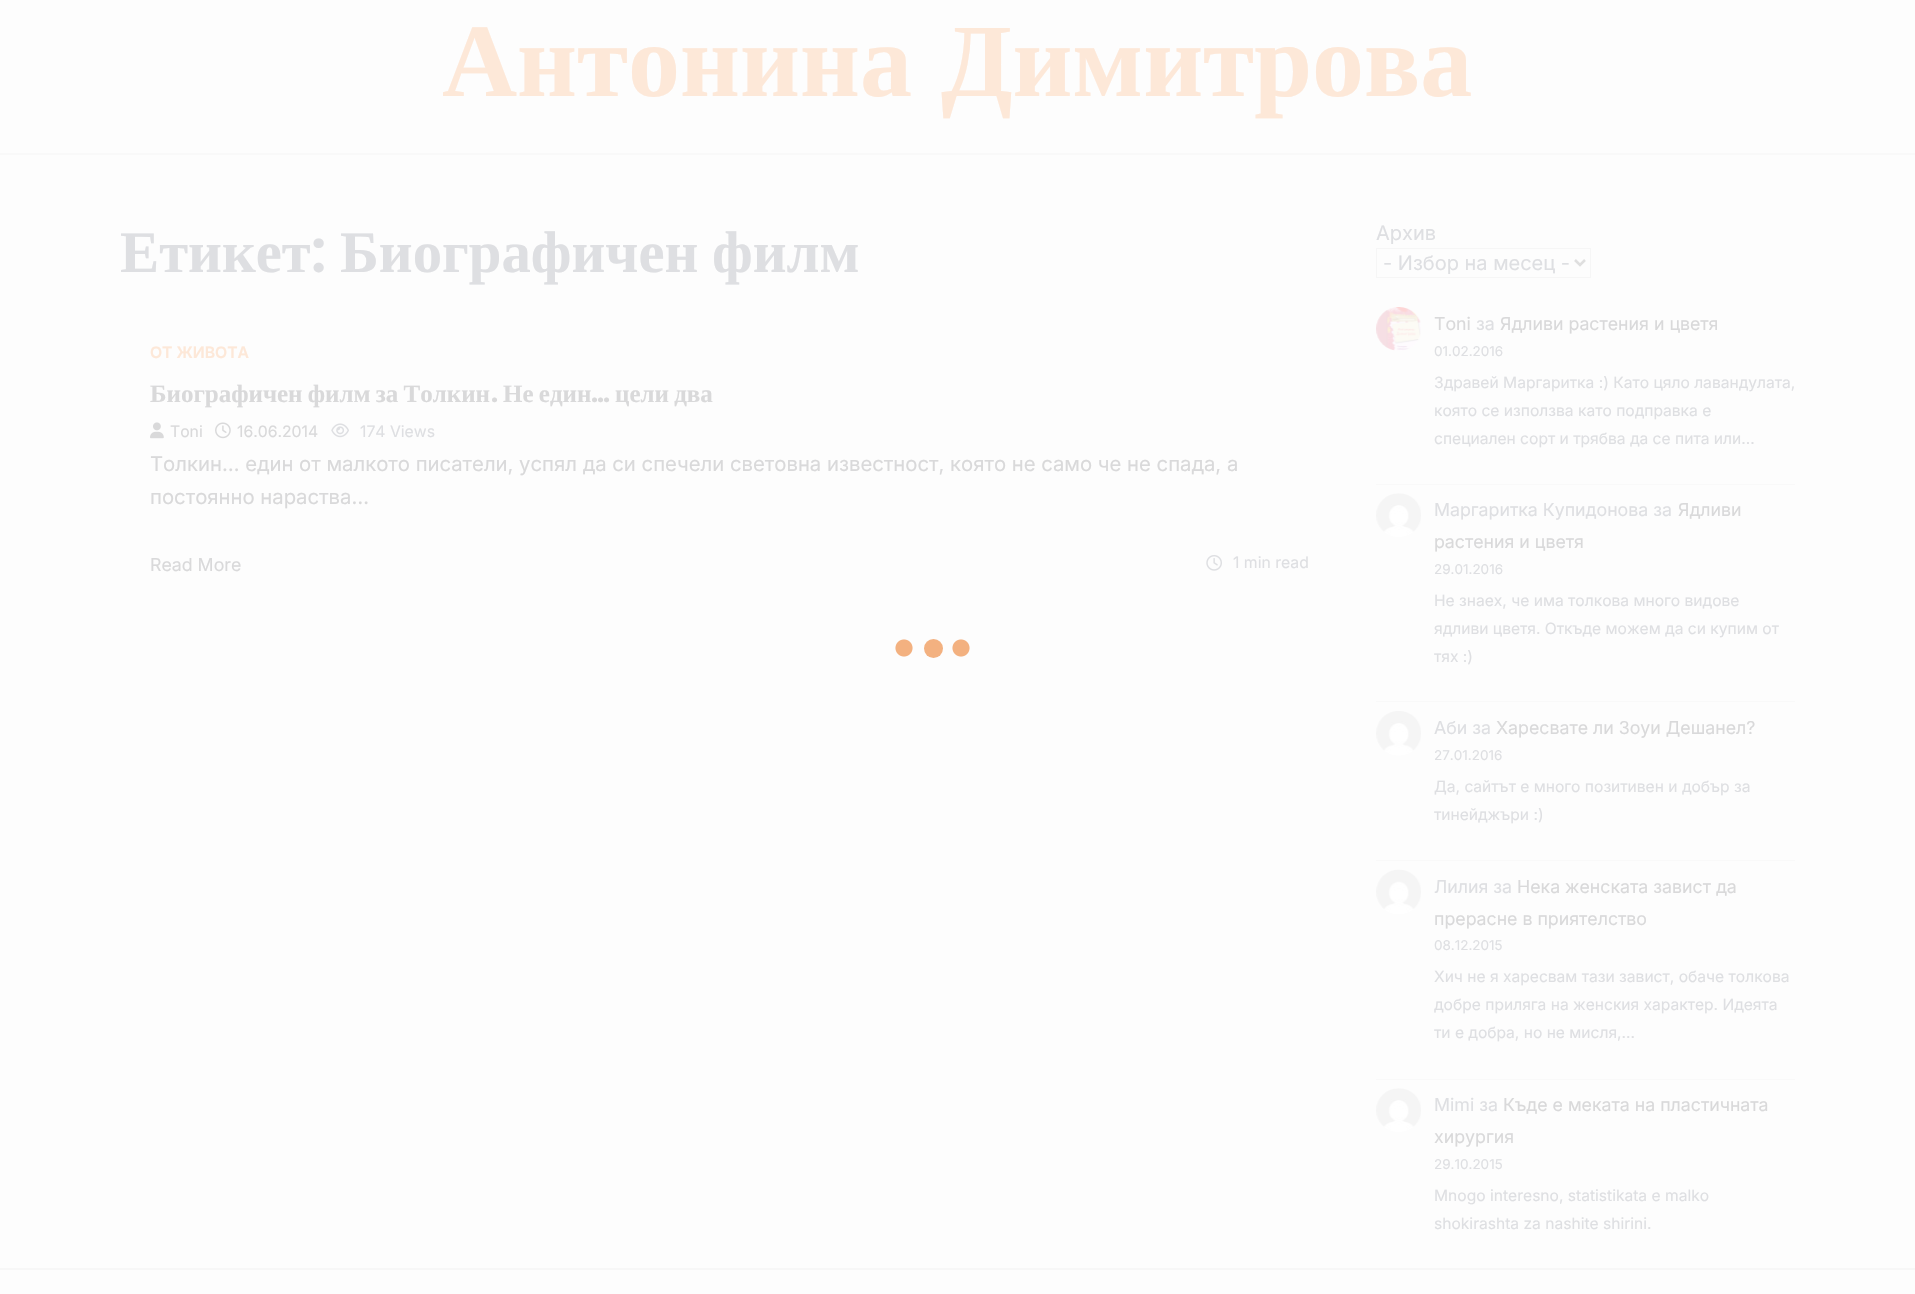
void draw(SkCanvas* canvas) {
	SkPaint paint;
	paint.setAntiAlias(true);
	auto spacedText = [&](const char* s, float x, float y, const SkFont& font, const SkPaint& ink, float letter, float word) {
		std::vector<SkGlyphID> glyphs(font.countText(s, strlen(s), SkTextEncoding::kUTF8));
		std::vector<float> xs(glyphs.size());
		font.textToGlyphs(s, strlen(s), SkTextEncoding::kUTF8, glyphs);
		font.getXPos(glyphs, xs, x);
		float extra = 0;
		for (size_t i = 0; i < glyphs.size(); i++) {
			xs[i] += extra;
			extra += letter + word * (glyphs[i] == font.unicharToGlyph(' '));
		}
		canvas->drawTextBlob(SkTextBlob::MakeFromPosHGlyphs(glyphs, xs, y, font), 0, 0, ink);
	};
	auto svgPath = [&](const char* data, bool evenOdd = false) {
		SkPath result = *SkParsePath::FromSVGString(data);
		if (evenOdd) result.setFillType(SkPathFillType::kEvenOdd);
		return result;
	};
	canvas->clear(0xfffdfdfd);
	SkFont f1(fontMgr->matchFamilyStyle("Liberation Serif", SkFontStyle::Bold()), 104);
	f1.setSubpixel(true);
	paint.setColor(0xfffde8d8);
	spacedText("Антонина Димитрова", 442, 96, f1, paint, 0, 3);
	paint.setColor(0xfff9f9f9);
	canvas->drawRect(SkRect::MakeXYWH(0, 153, 1915, 2), paint);
	SkFont f2(fontMgr->matchFamilyStyle("Liberation Serif", SkFontStyle::Bold()), 58.75);
	f2.setSubpixel(true);
	paint.setColor(0xffdedfe2);
	canvas->drawString("Етикет", 120, 272, f2, paint);
	SkFont f3(fontMgr->matchFamilyStyle("Poppins", SkFontStyle(600, SkFontStyle::kNormal_Width, SkFontStyle::kUpright_Slant)), 58.75);
	f3.setSubpixel(true);
	canvas->drawString(":", 311, 272, f3, paint);
	spacedText("Биографичен филм", 340, 272, f2, paint, 0, -1);
	SkFont f4(fontMgr->matchFamilyStyle("Inter", SkFontStyle(600, SkFontStyle::kNormal_Width, SkFontStyle::kUpright_Slant)), 15.75);
	f4.setSubpixel(true);
	paint.setColor(0xfffde8d8);
	canvas->drawString("ОТ ЖИВОТА", 150, 358, f4, paint);
	SkFont f5(fontMgr->matchFamilyStyle("Liberation Serif", SkFontStyle::Bold()), 25);
	f5.setSubpixel(true);
	paint.setColor(0xffd9d9da);
	spacedText("Биографичен филм за Толкин", 150, 402, f5, paint, 0, -1);
	SkFont f6(fontMgr->matchFamilyStyle("Poppins", SkFontStyle::Bold()), 25);
	f6.setSubpixel(true);
	canvas->drawString(".", 491, 402, f6, paint);
	spacedText("Не един", 503, 402, f5, paint, 0, -1);
	canvas->drawString("…", 591, 402, f6, paint);
	spacedText("цели два", 615, 402, f5, paint, 0, -1);
	canvas->drawImageRect(SkImages::DeferredFromEncodedData(SkData::MakeFromFileName("img1.png")), SkRect::MakeXYWH(150, 422, 14, 17), SkSamplingOptions());
	SkFont f7(fontMgr->matchFamilyStyle("Inter", SkFontStyle::Normal()), 15.75);
	f7.setSubpixel(true);
	canvas->drawString("Toni", 170, 437, f7, paint);
	canvas->drawImageRect(SkImages::DeferredFromEncodedData(SkData::MakeFromFileName("img2.png")), SkRect::MakeXYWH(215, 422, 16, 17), SkSamplingOptions());
	canvas->drawString("16.06.2014", 237, 437, f7, paint);
	canvas->drawImageRect(SkImages::DeferredFromEncodedData(SkData::MakeFromFileName("img3.png")), SkRect::MakeXYWH(331, 423, 18, 15), SkSamplingOptions());
	paint.setColor(0xffdedfe2);
	canvas->drawString("174 Views", 360, 437, f7, paint);
	SkFont f8(fontMgr->matchFamilyStyle("Inter", SkFontStyle::Normal()), 20.3);
	f8.setSubpixel(true);
	paint.setColor(0xffd9d9da);
	canvas->drawString("Толкин… един от малкото писатели, успял да си спечели световна известност, която не само че не спада, а", 150, 471, f8, paint);
	canvas->drawString("постоянно нараства…", 150, 504, f8, paint);
	SkFont f9(fontMgr->matchFamilyStyle("Inter", SkFontStyle::Normal()), 17.75);
	f9.setSubpixel(true);
	canvas->drawString("Read More", 150, 571, f9, paint);
	canvas->drawImageRect(SkImages::DeferredFromEncodedData(SkData::MakeFromFileName("img4.png")), SkRect::MakeXYWH(1206, 554, 16, 17), SkSamplingOptions());
	paint.setColor(0xffdedfe2);
	canvas->drawString("1 min read", 1233, 568, f7, paint);
	SkFont f10(fontMgr->matchFamilyStyle("Inter", SkFontStyle::Normal()), 20);
	f10.setSubpixel(true);
	canvas->drawString("Архив", 1376, 240, f10, paint);
	paint.setStroke(true);
	paint.setStrokeWidth(1);
	paint.setColor(0xfff6f6f6);
	canvas->drawRect(SkRect::MakeXYWH(1376.5, 248.5, 214, 29), paint);
	paint.setStrokeWidth(2.5);
	paint.setColor(0xffdfdfdf);
	canvas->drawPath(svgPath("M1575 260L1580 265L1585 260"), paint);
	paint.setStroke(false);
	paint.setColor(0xffdedfe2);
	canvas->drawString("- Избор на месец -", 1383, 270, f10, paint);
	paint.setColor(0xfff9f9f9);
	canvas->drawRect(SkRect::MakeXYWH(1376, 484, 419, 1), paint);
	canvas->drawImageRect(SkImages::DeferredFromEncodedData(SkData::MakeFromFileName("img5.png")), SkRect::MakeXYWH(1376, 307, 45, 44), SkSamplingOptions());
	paint.setColor(0xffd9d9da);
	canvas->drawString("Toni", 1434, 330, f9, paint);
	paint.setColor(0xffdedfe2);
	canvas->drawString("за", 1476, 330, f9, paint);
	paint.setColor(0xffd9d9da);
	canvas->drawString("Ядливи растения и цветя", 1500, 330, f9, paint);
	SkFont f11(fontMgr->matchFamilyStyle("Inter", SkFontStyle::Normal()), 13.5);
	f11.setSubpixel(true);
	paint.setColor(0xffdedfe2);
	canvas->drawString("01.02.2016", 1434, 356, f11, paint);
	SkFont f12(fontMgr->matchFamilyStyle("Inter", SkFontStyle::Normal()), 15.6);
	f12.setSubpixel(true);
	canvas->drawString("Здравей Маргаритка :) Като цяло лавандулата,", 1434, 388, f12, paint);
	canvas->drawString("която се използва като подправка е", 1434, 416, f12, paint);
	canvas->drawString("специален сорт и трябва да се пита или…", 1434, 444, f12, paint);
	paint.setColor(0xfff9f9f9);
	canvas->drawRect(SkRect::MakeXYWH(1376, 701, 419, 1), paint);
	canvas->drawImageRect(SkImages::DeferredFromEncodedData(SkData::MakeFromFileName("img6.png")), SkRect::MakeXYWH(1376, 493, 45, 44), SkSamplingOptions());
	paint.setColor(0xffdedfe2);
	canvas->drawString("Маргаритка Купидонова за", 1434, 516, f9, paint);
	paint.setColor(0xffd9d9da);
	canvas->drawString("Ядливи", 1678, 516, f9, paint);
	canvas->drawString("растения и цветя", 1434, 548, f9, paint);
	paint.setColor(0xffdedfe2);
	canvas->drawString("29.01.2016", 1434, 574, f11, paint);
	canvas->drawString("Не знаех, че има толкова много видове", 1434, 606, f12, paint);
	canvas->drawString("ядливи цветя. Откъде можем да си купим от", 1434, 634, f12, paint);
	canvas->drawString("тях :)", 1434, 662, f12, paint);
	paint.setColor(0xfff9f9f9);
	canvas->drawRect(SkRect::MakeXYWH(1376, 860, 419, 1), paint);
	canvas->drawImageRect(SkImages::DeferredFromEncodedData(SkData::MakeFromFileName("img7.png")), SkRect::MakeXYWH(1376, 711, 45, 45), SkSamplingOptions());
	paint.setColor(0xffdedfe2);
	canvas->drawString("Аби за", 1434, 734, f9, paint);
	paint.setColor(0xffd9d9da);
	canvas->drawString("Харесвате ли Зоуи Дешанел?", 1496, 734, f9, paint);
	paint.setColor(0xffdedfe2);
	canvas->drawString("27.01.2016", 1434, 760, f11, paint);
	canvas->drawString("Да, сайтът е много позитивен и добър за", 1434, 792, f12, paint);
	canvas->drawString("тинейджъри :)", 1434, 820, f12, paint);
	paint.setColor(0xfff9f9f9);
	canvas->drawRect(SkRect::MakeXYWH(1376, 1079, 419, 1), paint);
	canvas->drawImageRect(SkImages::DeferredFromEncodedData(SkData::MakeFromFileName("img8.png")), SkRect::MakeXYWH(1376, 869, 45, 45), SkSamplingOptions());
	paint.setColor(0xffdedfe2);
	canvas->drawString("Лилия за", 1434, 893, f9, paint);
	paint.setColor(0xffd9d9da);
	canvas->drawString("Нека женската завист да", 1517, 893, f9, paint);
	canvas->drawString("прерасне в приятелство", 1434, 925, f9, paint);
	paint.setColor(0xffdedfe2);
	canvas->drawString("08.12.2015", 1434, 950, f11, paint);
	canvas->drawString("Хич не я харесвам тази завист, обаче толкова", 1434, 982, f12, paint);
	canvas->drawString("добре приляга на женския характер. Идеята", 1434, 1010, f12, paint);
	canvas->drawString("ти е добра, но не мисля,…", 1434, 1038, f12, paint);
	canvas->drawImageRect(SkImages::DeferredFromEncodedData(SkData::MakeFromFileName("img6.png")), SkRect::MakeXYWH(1376, 1088, 45, 44), SkSamplingOptions());
	canvas->drawString("Mimi за", 1434, 1111, f9, paint);
	paint.setColor(0xffd9d9da);
	canvas->drawString("Къде е меката на пластичната", 1503, 1111, f9, paint);
	canvas->drawString("хирургия", 1434, 1143, f9, paint);
	paint.setColor(0xffdedfe2);
	canvas->drawString("29.10.2015", 1434, 1169, f11, paint);
	canvas->drawString("Mnogo interesno, statistikata e malko", 1434, 1201, f12, paint);
	canvas->drawString("shokirashta za nashite shirini.", 1434, 1229, f12, paint);
	{
		const SkColor colors[] = {0xfff3b180, 0xfffdfdfd};
		const float stops[] = {0.9, 1};
		paint.setShader(SkGradientShader::MakeRadial({961, 648}, 9, colors, stops, 2, SkTileMode::kClamp));
		paint.setAlpha(255);
	}
	canvas->drawRect(SkRect::MakeXYWH(952, 639, 18, 18), paint);
	{
		const SkColor colors[] = {0xfff3b180, 0xfffdfdfd};
		const float stops[] = {0.9, 1};
		paint.setShader(SkGradientShader::MakeRadial({904, 648}, 9, colors, stops, 2, SkTileMode::kClamp));
		paint.setAlpha(255);
	}
	canvas->drawRect(SkRect::MakeXYWH(895, 639, 18, 18), paint);
	paint.setShader(nullptr);
	paint.setColor(0xfff3b180);
	canvas->drawCircle(933.5, 648.5, 9.5, paint);
	paint.setColor(0xfff7f7f7);
	canvas->drawRect(SkRect::MakeXYWH(0, 1268, 1915, 2), paint);
}
